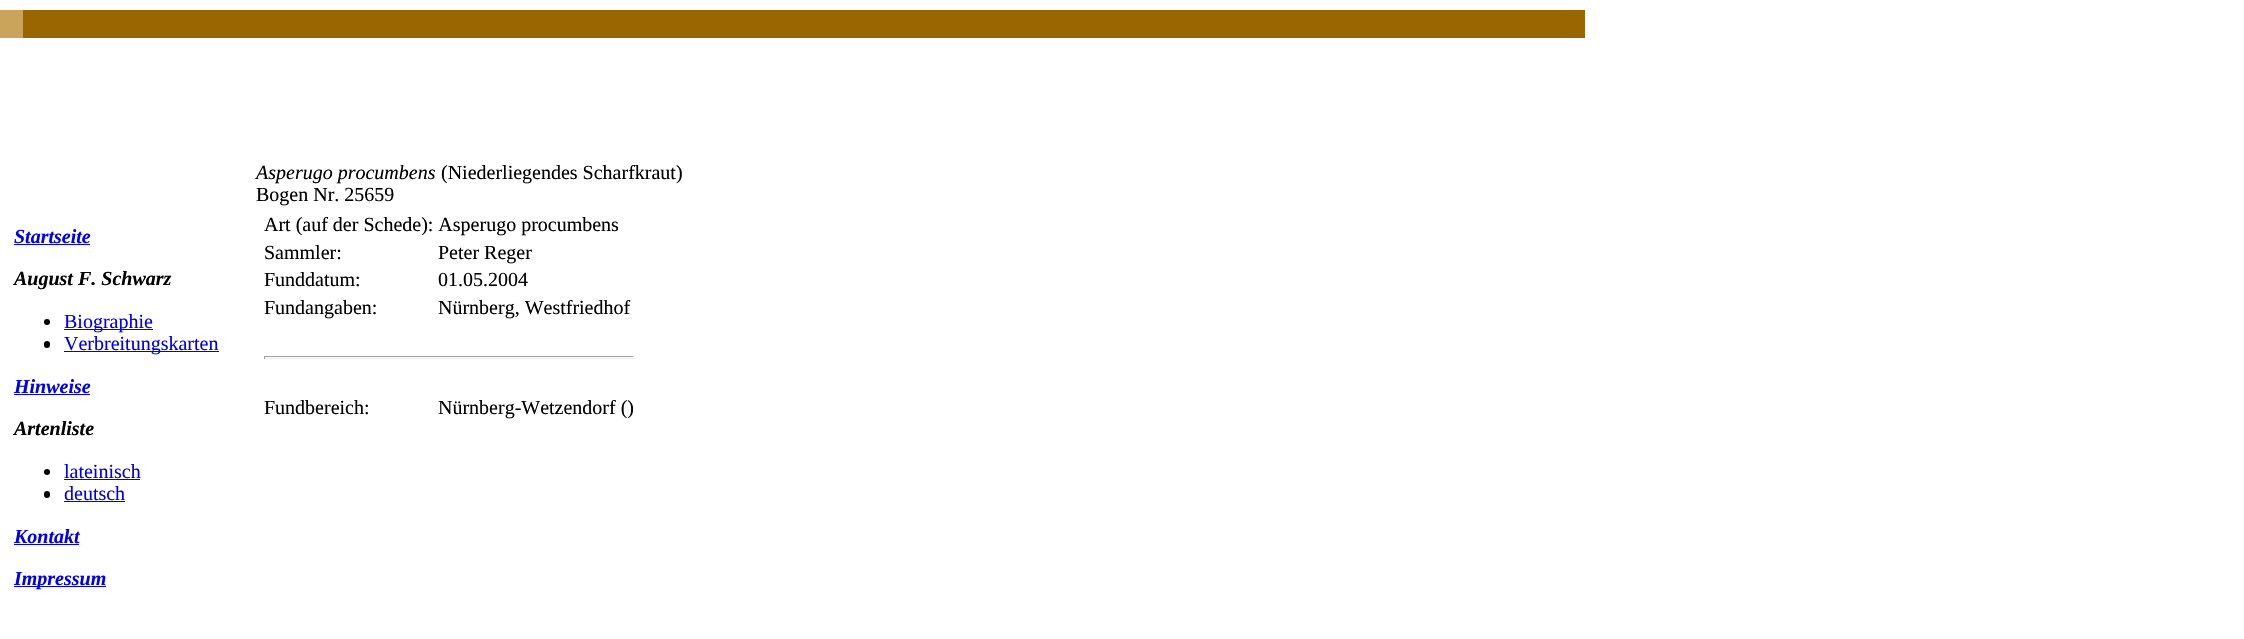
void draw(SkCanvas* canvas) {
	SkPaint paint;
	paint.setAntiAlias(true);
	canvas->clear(0xffffffff);
	paint.setColor(0xffcaa45b);
	canvas->drawRect(SkRect::MakeXYWH(0, 10, 23, 28), paint);
	paint.setColor(0xff9a6600);
	canvas->drawRect(SkRect::MakeXYWH(23, 10, 1562, 28), paint);
	SkFont f1(fontMgr->matchFamilyStyle("Liberation Serif", SkFontStyle::BoldItalic()), 20);
	f1.setSubpixel(true);
	paint.setColor(0xff0000ee);
	canvas->drawString("Startseite", 14, 243, f1, paint);
	canvas->drawRect(SkRect::MakeXYWH(14, 244, 76, 1), paint);
	paint.setColor(0xff000000);
	canvas->drawString("August F. Schwarz", 14, 285, f1, paint);
	canvas->drawCircle(47, 322, 3, paint);
	paint.setColor(0xff0000ee);
	canvas->drawRect(SkRect::MakeXYWH(64, 329, 89, 1), paint);
	SkFont f2(fontMgr->matchFamilyStyle("Liberation Serif", SkFontStyle::Normal()), 20);
	f2.setSubpixel(true);
	canvas->drawString("Biographie", 64, 328, f2, paint);
	paint.setColor(0xff000000);
	canvas->drawRoundRect(SkRect::MakeXYWH(44, 341, 6, 7), 3, 3, paint);
	paint.setColor(0xff0000ee);
	canvas->drawRect(SkRect::MakeXYWH(64, 351, 155, 1), paint);
	canvas->drawString("Verbreitungskarten", 64, 350, f2, paint);
	canvas->drawString("Hinweise", 14, 393, f1, paint);
	canvas->drawRect(SkRect::MakeXYWH(14, 394, 76, 1), paint);
	paint.setColor(0xff000000);
	canvas->drawString("Artenliste", 14, 435, f1, paint);
	canvas->drawCircle(47, 472, 3, paint);
	paint.setColor(0xff0000ee);
	canvas->drawString("lateinisch", 64, 478, f2, paint);
	canvas->drawRect(SkRect::MakeXYWH(64, 479, 76, 1), paint);
	paint.setColor(0xff000000);
	canvas->drawRoundRect(SkRect::MakeXYWH(44, 491, 6, 7), 3, 3, paint);
	paint.setColor(0xff0000ee);
	canvas->drawString("deutsch", 64, 500, f2, paint);
	canvas->drawRect(SkRect::MakeXYWH(64, 501, 61, 1), paint);
	canvas->drawString("Kontakt", 14, 543, f1, paint);
	canvas->drawRect(SkRect::MakeXYWH(14, 544, 65, 1), paint);
	canvas->drawRect(SkRect::MakeXYWH(14, 586, 92, 1), paint);
	canvas->drawString("Impressum", 14, 585, f1, paint);
	SkFont f3(fontMgr->matchFamilyStyle("Liberation Serif", SkFontStyle::Italic()), 20);
	f3.setSubpixel(true);
	paint.setColor(0xff000000);
	canvas->drawString("Asperugo procumbens", 256, 179, f3, paint);
	canvas->drawString("(Niederliegendes Scharfkraut)", 441, 179, f2, paint);
	canvas->drawString("Bogen Nr. 25659", 256, 201, f2, paint);
	canvas->drawString("Art (auf der Schede): Asperugo procumbens", 264, 231, f2, paint);
	canvas->drawString("Sammler:", 264, 259, f2, paint);
	canvas->drawString("Peter Reger", 438, 259, f2, paint);
	canvas->drawString("Funddatum:", 264, 286, f2, paint);
	canvas->drawString("01.05.2004", 438, 286, f2, paint);
	canvas->drawString("Fundangaben:", 264, 314, f2, paint);
	canvas->drawString("Nürnberg, Westfriedhof", 438, 314, f2, paint);
	paint.setColor(0xff9f9f9f);
	canvas->drawRect(SkRect::MakeXYWH(264, 356, 370, 1), paint);
	paint.setColor(0xffeeeeee);
	canvas->drawRect(SkRect::MakeXYWH(633, 356, 1, 3), paint);
	canvas->drawRect(SkRect::MakeXYWH(264, 358, 370, 1), paint);
	paint.setColor(0xff9f9f9f);
	canvas->drawRect(SkRect::MakeXYWH(264, 356, 1, 3), paint);
	paint.setColor(0xff000000);
	canvas->drawString("Fundbereich:", 264, 414, f2, paint);
	canvas->drawString("Nürnberg-Wetzendorf ()", 438, 414, f2, paint);
}
